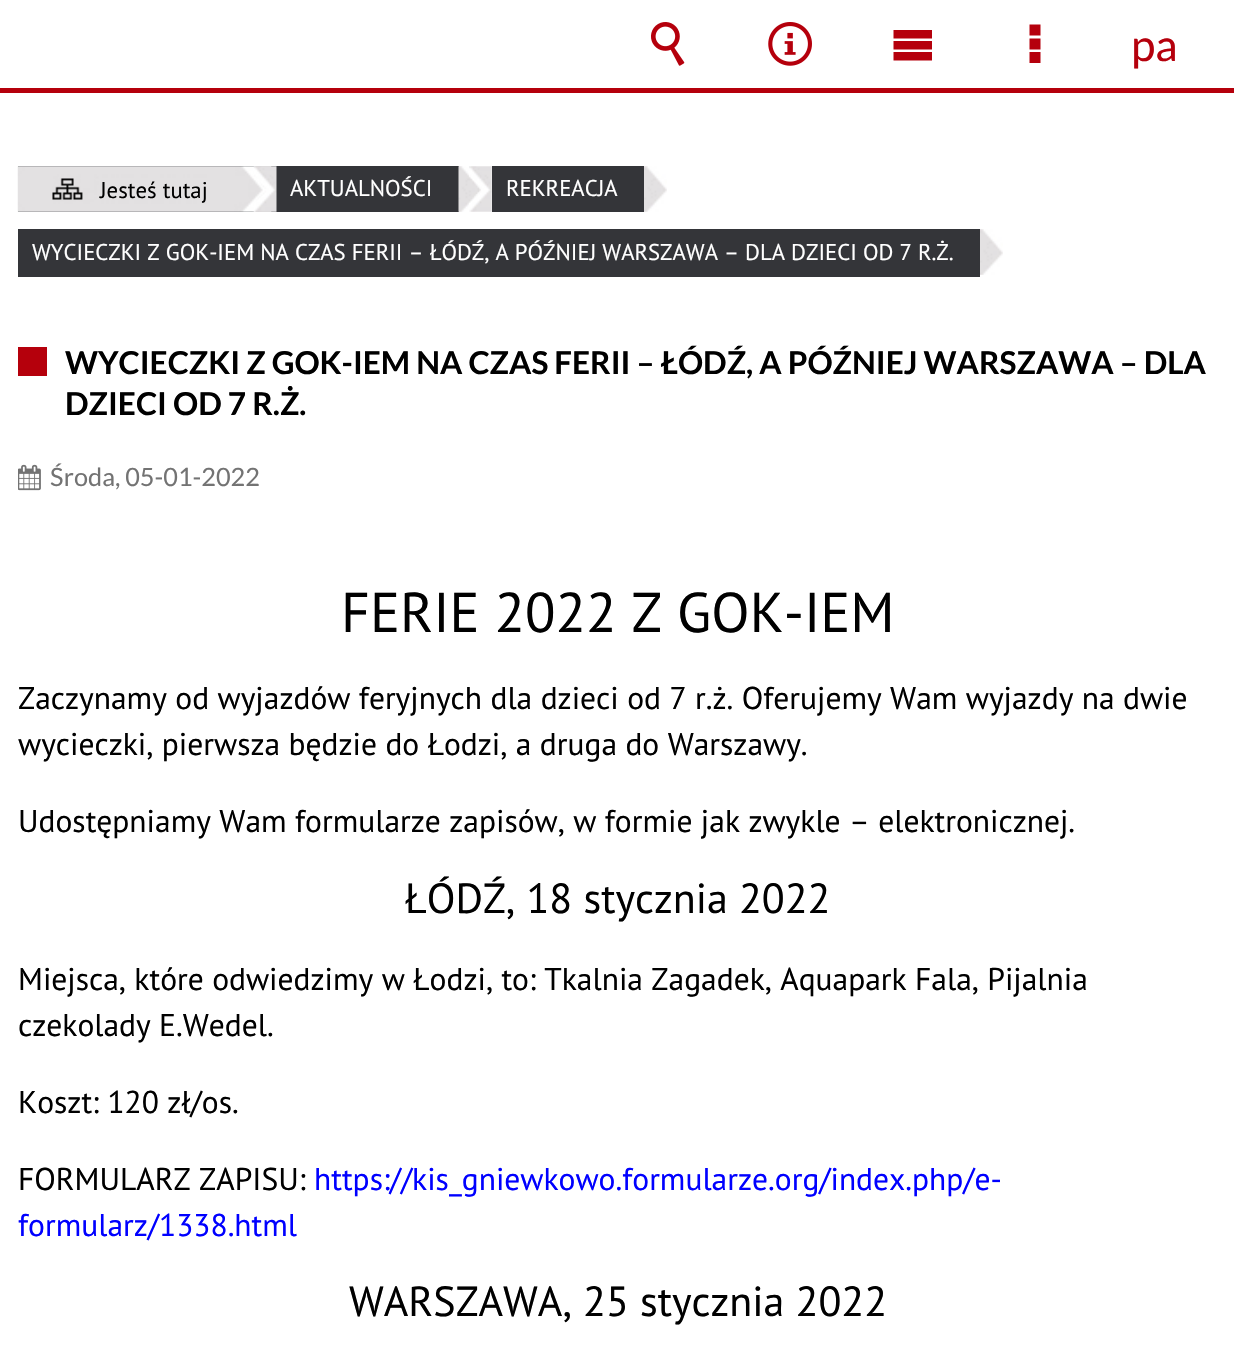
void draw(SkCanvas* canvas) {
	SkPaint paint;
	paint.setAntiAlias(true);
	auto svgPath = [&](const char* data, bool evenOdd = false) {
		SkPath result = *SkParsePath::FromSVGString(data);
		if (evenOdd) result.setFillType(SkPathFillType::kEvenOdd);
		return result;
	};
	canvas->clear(0xffffffff);
	paint.setColor(0xffb5000c);
	canvas->drawRect(SkRect::MakeXYWH(0, 88, 1234, 5), paint);
	canvas->drawImageRect(SkImages::DeferredFromEncodedData(SkData::MakeFromFileName("img1.png")), SkRect::MakeXYWH(651, 22, 34, 44), SkSamplingOptions());
	canvas->drawImageRect(SkImages::DeferredFromEncodedData(SkData::MakeFromFileName("img2.png")), SkRect::MakeXYWH(768, 22, 44, 44), SkSamplingOptions());
	canvas->drawPath(svgPath("M893.5 30V38.5H932V30ZM893.5 41V49.5H932V41ZM893.5 52V60.5H932V52Z"), paint);
	canvas->drawPath(svgPath("M1029.5 24.5V35.5H1040.5V24.5ZM1029.5 38.5V49.5H1040.5V38.5ZM1029.5 52V63H1040.5V52Z"), paint);
	SkFont f1(fontMgr->matchFamilyStyle("Lato", SkFontStyle::Normal()), 44);
	f1.setSubpixel(true);
	canvas->drawString("pa", 1131, 61, f1, paint);
	paint.setColor(0xff343539);
	canvas->drawRect(SkRect::MakeXYWH(18, 166, 441, 46), paint);
	canvas->drawImageRect(SkImages::DeferredFromEncodedData(SkData::MakeFromFileName("img3.png")), SkRect::MakeXYWH(17, 166, 255, 46), SkSamplingOptions());
	SkFont f2(fontMgr->matchFamilyStyle("PT Sans", SkFontStyle::Normal()), 22.75);
	f2.setSubpixel(true);
	paint.setColor(0xff000000);
	canvas->drawString("Jesteś tutaj", 100, 198, f2, paint);
	canvas->drawImageRect(SkImages::DeferredFromEncodedData(SkData::MakeFromFileName("img4.png")), SkRect::MakeXYWH(253, 166, 24, 46), SkSamplingOptions());
	paint.setColor(0xffffffff);
	canvas->drawString("AKTUALNOŚCI", 290, 196, f2, paint);
	canvas->drawImageRect(SkImages::DeferredFromEncodedData(SkData::MakeFromFileName("img5.png")), SkRect::MakeXYWH(458, 166, 24, 46), SkSamplingOptions());
	paint.setColor(0xff343539);
	canvas->drawRect(SkRect::MakeXYWH(492, 166, 152, 46), paint);
	canvas->drawImageRect(SkImages::DeferredFromEncodedData(SkData::MakeFromFileName("img6.png")), SkRect::MakeXYWH(469, 166, 23, 46), SkSamplingOptions());
	paint.setColor(0xffffffff);
	canvas->drawString("REKREACJA", 506, 196, f2, paint);
	canvas->drawImageRect(SkImages::DeferredFromEncodedData(SkData::MakeFromFileName("img7.png")), SkRect::MakeXYWH(644, 166, 23, 46), SkSamplingOptions());
	paint.setColor(0xff343539);
	canvas->drawRect(SkRect::MakeXYWH(18, 229, 962, 48), paint);
	paint.setColor(0xffffffff);
	canvas->drawString("WYCIECZKI Z GOK-IEM NA CZAS FERII – ŁÓDŹ, A PÓŹNIEJ WARSZAWA – DLA DZIECI OD 7 R.Ż.", 32, 260, f2, paint);
	canvas->drawImageRect(SkImages::DeferredFromEncodedData(SkData::MakeFromFileName("img7.png")), SkRect::MakeXYWH(980, 229, 23, 46), SkSamplingOptions());
	paint.setColor(0xffb5000c);
	canvas->drawRect(SkRect::MakeXYWH(18, 347, 29, 29), paint);
	SkFont f3(fontMgr->matchFamilyStyle("Lato", SkFontStyle::Bold()), 31.5);
	f3.setSubpixel(true);
	paint.setColor(0xff000000);
	canvas->drawString("WYCIECZKI Z GOK-IEM NA CZAS FERII – ŁÓDŹ, A PÓŹNIEJ WARSZAWA – DLA", 65, 374, f3, paint);
	canvas->drawString("DZIECI OD 7 R.Ż.", 65, 415, f3, paint);
	canvas->drawImageRect(SkImages::DeferredFromEncodedData(SkData::MakeFromFileName("img8.png")), SkRect::MakeXYWH(18, 464, 23, 27), SkSamplingOptions());
	SkFont f4(fontMgr->matchFamilyStyle("Lato", SkFontStyle::Normal()), 25.25);
	f4.setSubpixel(true);
	paint.setColor(0xff737373);
	canvas->drawString("Środa, 05-01-2022", 50, 486, f4, paint);
	SkFont f5(fontMgr->matchFamilyStyle("PT Sans", SkFontStyle::Normal()), 56);
	f5.setSubpixel(true);
	paint.setColor(0xff000000);
	canvas->drawString("FERIE 2022 Z GOK-IEM", 341, 632, f5, paint);
	SkFont f6(fontMgr->matchFamilyStyle("PT Sans", SkFontStyle::Normal()), 31.5);
	f6.setSubpixel(true);
	canvas->drawString("Zaczynamy od wyjazdów feryjnych dla dzieci od 7 r.ż. Oferujemy Wam wyjazdy na dwie", 18, 709, f6, paint);
	canvas->drawString("wycieczki, pierwsza będzie do Łodzi, a druga do Warszawy.", 18, 755, f6, paint);
	canvas->drawString("Udostępniamy Wam formularze zapisów, w formie jak zwykle – elektronicznej.", 18, 832, f6, paint);
	SkFont f7(fontMgr->matchFamilyStyle("PT Sans", SkFontStyle::Normal()), 42);
	f7.setSubpixel(true);
	canvas->drawString("ŁÓDŹ, 18 stycznia 2022", 405, 913, f7, paint);
	canvas->drawString("Miejsca, które odwiedzimy w Łodzi, to: Tkalnia Zagadek, Aquapark Fala, Pijalnia", 18, 990, f6, paint);
	canvas->drawString("czekolady E.Wedel.", 18, 1036, f6, paint);
	canvas->drawString("Koszt: 120 zł/os.", 18, 1113, f6, paint);
	canvas->drawString("FORMULARZ ZAPISU:", 18, 1190, f6, paint);
	paint.setColor(0xff0000ff);
	canvas->drawString("https://kis_gniewkowo.formularze.org/index.php/e-", 314, 1190, f6, paint);
	canvas->drawString("formularz/1338.html", 18, 1236, f6, paint);
	paint.setColor(0xff000000);
	canvas->drawString("WARSZAWA, 25 stycznia 2022", 349, 1316, f7, paint);
}
